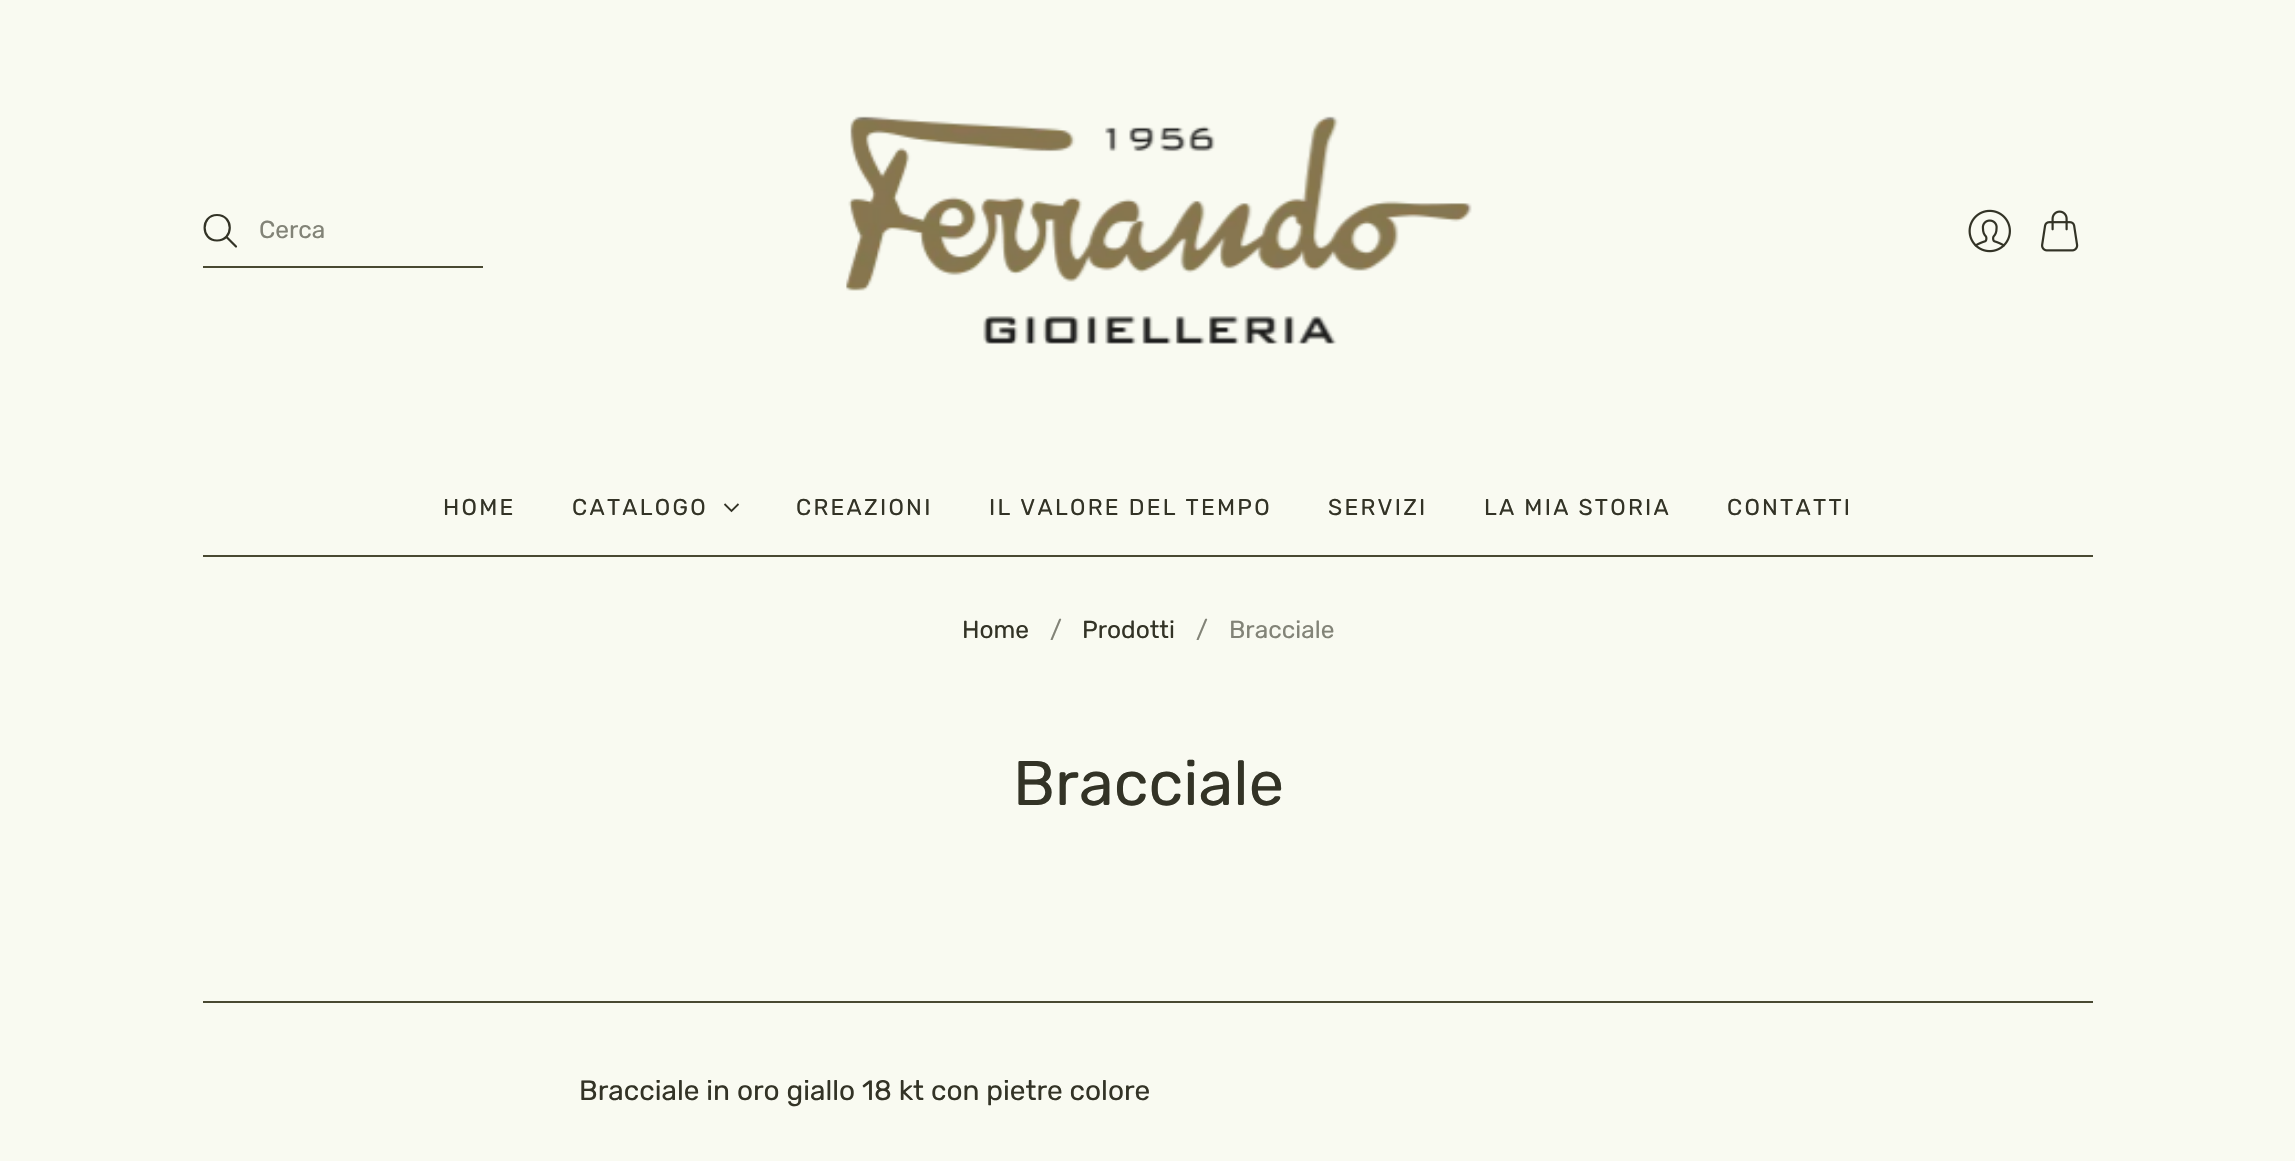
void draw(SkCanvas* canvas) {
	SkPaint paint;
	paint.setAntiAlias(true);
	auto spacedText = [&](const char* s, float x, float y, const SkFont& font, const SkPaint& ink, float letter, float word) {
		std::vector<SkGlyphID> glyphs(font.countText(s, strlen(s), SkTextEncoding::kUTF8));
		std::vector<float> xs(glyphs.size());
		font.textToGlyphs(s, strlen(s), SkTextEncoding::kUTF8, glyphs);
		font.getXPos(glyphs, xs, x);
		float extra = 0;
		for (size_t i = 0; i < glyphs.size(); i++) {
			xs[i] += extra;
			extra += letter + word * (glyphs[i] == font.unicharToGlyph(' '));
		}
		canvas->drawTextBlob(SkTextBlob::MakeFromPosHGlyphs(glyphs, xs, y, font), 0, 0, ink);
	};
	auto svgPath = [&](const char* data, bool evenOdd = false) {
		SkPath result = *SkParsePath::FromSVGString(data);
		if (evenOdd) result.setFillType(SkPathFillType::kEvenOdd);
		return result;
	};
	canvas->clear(0xfff9faf1);
	paint.setStroke(true);
	paint.setStrokeWidth(2.2);
	paint.setStrokeCap(SkPaint::kRound_Cap);
	paint.setStrokeJoin(SkPaint::kRound_Join);
	paint.setColor(0xff333326);
	canvas->drawPath(svgPath("M217 240.5C234 240.5 234 215 217 215C200.5 215 200.5 240.5 217 240.5ZM236 246.5L226.5 237"), paint);
	SkFont f1(fontMgr->matchFamilyStyle("Rubik", SkFontStyle::Normal()), 24.5);
	f1.setSubpixel(true);
	paint.setStroke(false);
	paint.setColor(0xff828377);
	canvas->drawString("Cerca", 259, 238, f1, paint);
	paint.setColor(0xff494932);
	canvas->drawRect(SkRect::MakeXYWH(203, 266, 280, 2), paint);
	canvas->drawImageRect(SkImages::DeferredFromEncodedData(SkData::MakeFromFileName("img1.png")), SkRect::MakeXYWH(1968, 209, 43, 44), SkSamplingOptions());
	canvas->drawImageRect(SkImages::DeferredFromEncodedData(SkData::MakeFromFileName("img2.png")), SkRect::MakeXYWH(2041, 210, 38, 42), SkSamplingOptions());
	canvas->drawRect(SkRect::MakeXYWH(203, 555, 1890, 2), paint);
	canvas->drawImageRect(SkImages::DeferredFromEncodedData(SkData::MakeFromFileName("img3.png")), SkRect::MakeXYWH(846, 116, 626, 228), SkSamplingOptions());
	SkFont f2(fontMgr->matchFamilyStyle("Rubik", SkFontStyle::Normal()), 22.75);
	f2.setSubpixel(true);
	paint.setColor(0xff333326);
	spacedText("HOME", 443, 515, f2, paint, 2.25, 0);
	spacedText("CATALOGO", 572, 515, f2, paint, 2.25, 0);
	paint.setStroke(true);
	paint.setStrokeWidth(1.8);
	paint.setStrokeCap(SkPaint::kButt_Cap);
	paint.setStrokeJoin(SkPaint::kMiter_Join);
	canvas->drawPath(svgPath("M724.5 504L731.5 511L738.5 504"), paint);
	paint.setStroke(false);
	spacedText("CREAZIONI", 796, 515, f2, paint, 2.25, 0);
	spacedText("IL VALORE DEL TEMPO", 989, 515, f2, paint, 2.25, 0);
	spacedText("SERVIZI", 1328, 515, f2, paint, 2.25, 0);
	spacedText("LA MIA STORIA", 1484, 515, f2, paint, 2.25, 0);
	spacedText("CONTATTI", 1727, 515, f2, paint, 2.25, 0);
	canvas->drawString("Home", 962, 638, f1, paint);
	paint.setColor(0xff828377);
	canvas->drawString("/", 1050, 638, f1, paint);
	paint.setColor(0xff333326);
	canvas->drawString("Prodotti", 1082, 638, f1, paint);
	paint.setColor(0xff828377);
	canvas->drawString("/", 1196, 638, f1, paint);
	canvas->drawString("Bracciale", 1229, 638, f1, paint);
	SkFont f3(fontMgr->matchFamilyStyle("Rubik", SkFontStyle::Normal()), 63);
	f3.setSubpixel(true);
	paint.setColor(0xff333326);
	canvas->drawString("Bracciale", 1013, 805, f3, paint);
	paint.setColor(0xff494932);
	canvas->drawRect(SkRect::MakeXYWH(203, 1001, 1890, 2), paint);
	SkFont f4(fontMgr->matchFamilyStyle("Rubik", SkFontStyle::Normal()), 28);
	f4.setSubpixel(true);
	paint.setColor(0xff333326);
	canvas->drawString("Bracciale in oro giallo 18 kt con pietre colore", 579, 1100, f4, paint);
}
